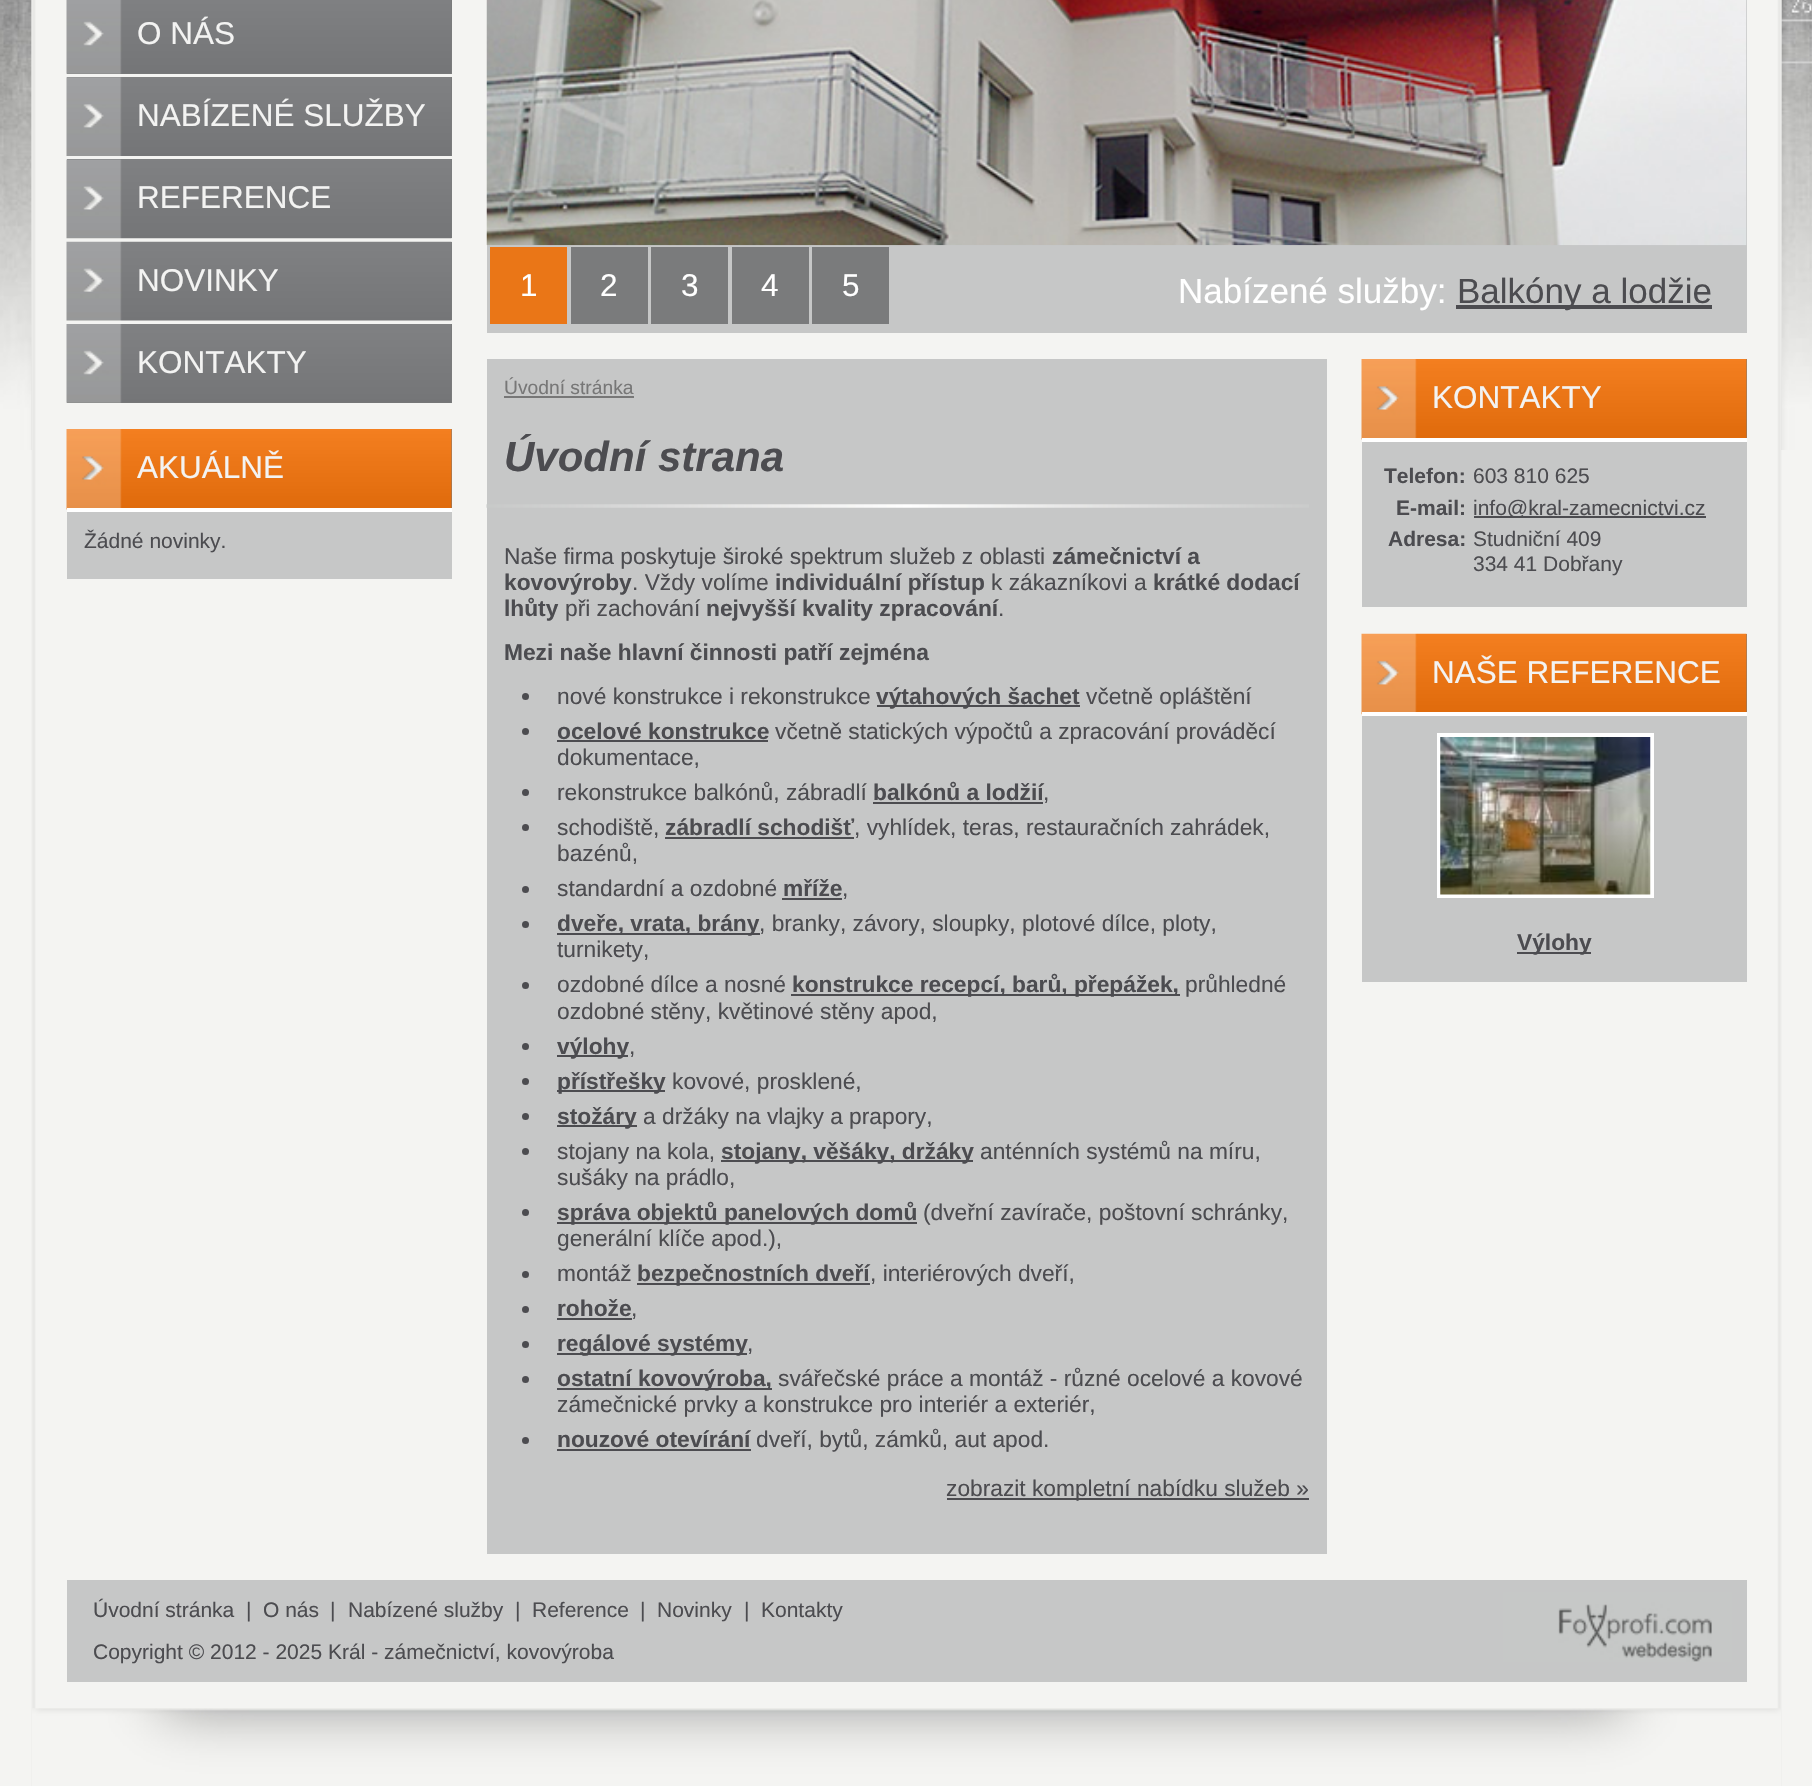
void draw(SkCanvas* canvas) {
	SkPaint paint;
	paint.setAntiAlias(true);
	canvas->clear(0xfff4f4f2);
	canvas->drawImageRect(SkImages::DeferredFromEncodedData(SkData::MakeFromFileName("img1.png")), SkRect::MakeXYWH(0, 0, 1812, 450), SkSamplingOptions());
	canvas->drawImageRect(SkImages::DeferredFromEncodedData(SkData::MakeFromFileName("img2.png")), SkRect::MakeXYWH(31, 0, 1751, 1786), SkSamplingOptions());
	paint.setColor(0xff7a7b7c);
	canvas->drawRect(SkRect::MakeXYWH(67, 0, 385, 74), paint);
	canvas->drawImageRect(SkImages::DeferredFromEncodedData(SkData::MakeFromFileName("img3.png")), SkRect::MakeXYWH(66, 0, 385, 74), SkSamplingOptions());
	SkFont f1(fontMgr->matchFamilyStyle("Liberation Sans", SkFontStyle::Normal()), 31.5);
	f1.setSubpixel(true);
	paint.setColor(0xfff3f3f2);
	canvas->drawString("O NÁS", 137, 44, f1, paint);
	paint.setColor(0xff7a7b7c);
	canvas->drawRect(SkRect::MakeXYWH(67, 77, 385, 79), paint);
	canvas->drawImageRect(SkImages::DeferredFromEncodedData(SkData::MakeFromFileName("img4.png")), SkRect::MakeXYWH(66, 77, 385, 79), SkSamplingOptions());
	paint.setColor(0xfff3f3f2);
	canvas->drawString("NABÍZENÉ SLUŽBY", 137, 126, f1, paint);
	paint.setColor(0xff7a7b7c);
	canvas->drawRect(SkRect::MakeXYWH(67, 159, 385, 79), paint);
	canvas->drawImageRect(SkImages::DeferredFromEncodedData(SkData::MakeFromFileName("img5.png")), SkRect::MakeXYWH(66, 159, 386, 80), SkSamplingOptions());
	paint.setColor(0xfff3f3f2);
	canvas->drawString("REFERENCE", 137, 208, f1, paint);
	paint.setColor(0xff7a7b7c);
	canvas->drawRect(SkRect::MakeXYWH(451, 242, 1, 78), paint);
	canvas->drawImageRect(SkImages::DeferredFromEncodedData(SkData::MakeFromFileName("img6.png")), SkRect::MakeXYWH(66, 241, 386, 80), SkSamplingOptions());
	paint.setColor(0xfff3f3f2);
	canvas->drawString("NOVINKY", 137, 291, f1, paint);
	paint.setColor(0xff7a7b7c);
	canvas->drawRect(SkRect::MakeXYWH(67, 324, 385, 79), paint);
	canvas->drawImageRect(SkImages::DeferredFromEncodedData(SkData::MakeFromFileName("img7.png")), SkRect::MakeXYWH(66, 324, 385, 79), SkSamplingOptions());
	paint.setColor(0xfff3f3f2);
	canvas->drawString("KONTAKTY", 137, 373, f1, paint);
	paint.setColor(0xffc6c7c7);
	canvas->drawRect(SkRect::MakeXYWH(67, 512, 385, 67), paint);
	paint.setColor(0xff7a7b7c);
	canvas->drawRect(SkRect::MakeXYWH(451, 429, 1, 79), paint);
	canvas->drawImageRect(SkImages::DeferredFromEncodedData(SkData::MakeFromFileName("img8.png")), SkRect::MakeXYWH(66, 429, 386, 81), SkSamplingOptions());
	paint.setColor(0xffffffff);
	canvas->drawRect(SkRect::MakeXYWH(67, 508, 385, 4), paint);
	paint.setColor(0xfff3f3f2);
	canvas->drawString("AKUÁLNĚ", 137, 478, f1, paint);
	SkFont f2(fontMgr->matchFamilyStyle("Liberation Sans", SkFontStyle::Normal()), 21);
	f2.setSubpixel(true);
	paint.setColor(0xff4c4c50);
	canvas->drawString("Žádné novinky.", 84, 548, f2, paint);
	paint.setColor(0xffc6c7c7);
	canvas->drawRect(SkRect::MakeXYWH(487, 0, 1260, 333), paint);
	canvas->drawImageRect(SkImages::DeferredFromEncodedData(SkData::MakeFromFileName("img9.png")), SkRect::MakeXYWH(486, 0, 1261, 246), SkSamplingOptions());
	paint.setColor(0xffea7617);
	canvas->drawRect(SkRect::MakeXYWH(490, 247, 77, 77), paint);
	paint.setColor(0xffffffff);
	canvas->drawString("1", 520, 296, f1, paint);
	paint.setColor(0xff7a7b7c);
	canvas->drawRect(SkRect::MakeXYWH(571, 247, 77, 77), paint);
	paint.setColor(0xffffffff);
	canvas->drawString("2", 600, 296, f1, paint);
	paint.setColor(0xff7a7b7c);
	canvas->drawRect(SkRect::MakeXYWH(651, 247, 77, 77), paint);
	paint.setColor(0xffffffff);
	canvas->drawString("3", 681, 296, f1, paint);
	paint.setColor(0xff7a7b7c);
	canvas->drawRect(SkRect::MakeXYWH(732, 247, 77, 77), paint);
	paint.setColor(0xffffffff);
	canvas->drawString("4", 761, 296, f1, paint);
	paint.setColor(0xff7a7b7c);
	canvas->drawRect(SkRect::MakeXYWH(812, 247, 77, 77), paint);
	paint.setColor(0xffffffff);
	canvas->drawString("5", 842, 296, f1, paint);
	SkFont f3(fontMgr->matchFamilyStyle("Liberation Sans", SkFontStyle::Normal()), 35);
	f3.setSubpixel(true);
	canvas->drawString("Nabízené služby:", 1178, 303, f3, paint);
	paint.setColor(0xff4c4c50);
	canvas->drawRect(SkRect::MakeXYWH(1456, 305, 256, 4), paint);
	canvas->drawString("Balkóny a lodžie", 1457, 303, f3, paint);
	paint.setColor(0xffc6c7c7);
	canvas->drawRect(SkRect::MakeXYWH(487, 359, 840, 1195), paint);
	SkFont f4(fontMgr->matchFamilyStyle("Liberation Sans", SkFontStyle::Normal()), 19.25);
	f4.setSubpixel(true);
	paint.setColor(0xff777777);
	canvas->drawString("Úvodní stránka", 504, 394, f4, paint);
	canvas->drawRect(SkRect::MakeXYWH(504, 396, 130, 2), paint);
	canvas->drawImageRect(SkImages::DeferredFromEncodedData(SkData::MakeFromFileName("img10.png")), SkRect::MakeXYWH(486, 504, 823, 4), SkSamplingOptions());
	SkFont f5(fontMgr->matchFamilyStyle("Liberation Sans", SkFontStyle::BoldItalic()), 42);
	f5.setSubpixel(true);
	paint.setColor(0xff4c4c50);
	canvas->drawString("Úvodní strana", 504, 471, f5, paint);
	SkFont f6(fontMgr->matchFamilyStyle("Liberation Sans", SkFontStyle::Normal()), 22.75);
	f6.setSubpixel(true);
	canvas->drawString("Naše firma poskytuje široké spektrum služeb z oblasti", 504, 564, f6, paint);
	SkFont f7(fontMgr->matchFamilyStyle("Liberation Sans", SkFontStyle::Bold()), 22.75);
	f7.setSubpixel(true);
	canvas->drawString("zámečnictví a", 1052, 564, f7, paint);
	canvas->drawString("kovovýroby", 504, 590, f7, paint);
	canvas->drawString(". Vždy volíme", 632, 590, f6, paint);
	canvas->drawString("individuální přístup", 775, 590, f7, paint);
	canvas->drawString("k zákazníkovi a", 991, 590, f6, paint);
	canvas->drawString("krátké dodací", 1153, 590, f7, paint);
	canvas->drawString("lhůty", 504, 616, f7, paint);
	canvas->drawString("při zachování", 565, 616, f6, paint);
	canvas->drawString("nejvyšší kvality zpracování", 706, 616, f7, paint);
	canvas->drawString(".", 998, 616, f6, paint);
	canvas->drawString("Mezi naše hlavní činnosti patří zejména", 504, 660, f7, paint);
	canvas->drawCircle(525.5, 696.5, 3.5, paint);
	canvas->drawString("nové konstrukce i rekonstrukce", 557, 704, f6, paint);
	canvas->drawRect(SkRect::MakeXYWH(877, 705, 203, 2), paint);
	canvas->drawString("výtahových šachet", 876, 704, f7, paint);
	canvas->drawString("včetně opláštění", 1086, 704, f6, paint);
	canvas->drawCircle(525.5, 731.5, 3.5, paint);
	canvas->drawString("ocelové konstrukce", 557, 739, f7, paint);
	canvas->drawRect(SkRect::MakeXYWH(557, 740, 211, 2), paint);
	canvas->drawString("včetně statických výpočtů a zpracování prováděcí", 775, 739, f6, paint);
	canvas->drawString("dokumentace,", 557, 765, f6, paint);
	canvas->drawCircle(525.5, 792.5, 3.5, paint);
	canvas->drawString("rekonstrukce balkónů, zábradlí", 557, 800, f6, paint);
	canvas->drawString("balkónů a lodžií", 873, 800, f7, paint);
	canvas->drawRect(SkRect::MakeXYWH(873, 802, 170, 2), paint);
	canvas->drawString(",", 1043, 800, f6, paint);
	canvas->drawCircle(525.5, 827.5, 3.5, paint);
	canvas->drawString("schodiště,", 557, 835, f6, paint);
	canvas->drawString("zábradlí schodišť", 665, 835, f7, paint);
	canvas->drawRect(SkRect::MakeXYWH(665, 837, 189, 2), paint);
	canvas->drawString(", vyhlídek, teras, restauračních zahrádek,", 854, 835, f6, paint);
	canvas->drawString("bazénů,", 557, 861, f6, paint);
	canvas->drawCircle(525.5, 889.5, 3.5, paint);
	canvas->drawString("standardní a ozdobné", 557, 896, f6, paint);
	canvas->drawString("mříže", 783, 896, f7, paint);
	canvas->drawRect(SkRect::MakeXYWH(782, 898, 60, 2), paint);
	canvas->drawString(",", 842, 896, f6, paint);
	canvas->drawCircle(525.5, 924.5, 3.5, paint);
	canvas->drawRect(SkRect::MakeXYWH(557, 933, 203, 2), paint);
	canvas->drawString("dveře, vrata, brány", 557, 931, f7, paint);
	canvas->drawString(", branky, závory, sloupky, plotové dílce, ploty,", 759, 931, f6, paint);
	canvas->drawString("turnikety,", 557, 957, f6, paint);
	canvas->drawCircle(525.5, 985.5, 3.5, paint);
	canvas->drawString("ozdobné dílce a nosné", 557, 992, f6, paint);
	canvas->drawRect(SkRect::MakeXYWH(791, 994, 389, 2), paint);
	canvas->drawString("konstrukce recepcí, barů, přepážek,", 792, 992, f7, paint);
	canvas->drawString("průhledné", 1185, 992, f6, paint);
	canvas->drawString("ozdobné stěny, květinové stěny apod,", 557, 1019, f6, paint);
	canvas->drawCircle(525.5, 1046.5, 3.5, paint);
	canvas->drawRect(SkRect::MakeXYWH(557, 1055, 71, 2), paint);
	canvas->drawString("výlohy", 557, 1054, f7, paint);
	canvas->drawString(",", 629, 1054, f6, paint);
	canvas->drawCircle(525.5, 1081.5, 3.5, paint);
	canvas->drawRect(SkRect::MakeXYWH(557, 1090, 108, 2), paint);
	canvas->drawString("přístřešky", 557, 1089, f7, paint);
	canvas->drawString("kovové, prosklené,", 672, 1089, f6, paint);
	canvas->drawCircle(525.5, 1116.5, 3.5, paint);
	canvas->drawRect(SkRect::MakeXYWH(557, 1125, 80, 2), paint);
	canvas->drawString("stožáry", 557, 1124, f7, paint);
	canvas->drawString("a držáky na vlajky a prapory,", 643, 1124, f6, paint);
	canvas->drawCircle(525.5, 1151.5, 3.5, paint);
	canvas->drawString("stojany na kola,", 557, 1159, f6, paint);
	canvas->drawRect(SkRect::MakeXYWH(721, 1160, 252, 2), paint);
	canvas->drawString("stojany, věšáky, držáky", 721, 1159, f7, paint);
	canvas->drawString("anténních systémů na míru,", 980, 1159, f6, paint);
	canvas->drawString("sušáky na prádlo,", 557, 1185, f6, paint);
	canvas->drawCircle(525.5, 1212.5, 3.5, paint);
	canvas->drawRect(SkRect::MakeXYWH(557, 1222, 360, 2), paint);
	canvas->drawString("správa objektů panelových domů", 557, 1220, f7, paint);
	canvas->drawString("(dveřní zavírače, poštovní schránky,", 923, 1220, f6, paint);
	canvas->drawString("generální klíče apod.),", 557, 1246, f6, paint);
	canvas->drawCircle(525.5, 1274.5, 3.5, paint);
	canvas->drawString("montáž", 557, 1281, f6, paint);
	canvas->drawRect(SkRect::MakeXYWH(637, 1283, 233, 2), paint);
	canvas->drawString("bezpečnostních dveří", 637, 1281, f7, paint);
	canvas->drawString(", interiérových dveří,", 870, 1281, f6, paint);
	canvas->drawCircle(525.5, 1309.5, 3.5, paint);
	canvas->drawString("rohože", 557, 1316, f7, paint);
	canvas->drawRect(SkRect::MakeXYWH(557, 1318, 75, 2), paint);
	canvas->drawString(",", 631, 1316, f6, paint);
	canvas->drawCircle(525.5, 1344.5, 3.5, paint);
	canvas->drawRect(SkRect::MakeXYWH(557, 1353, 190, 2), paint);
	canvas->drawString("regálové systémy", 557, 1351, f7, paint);
	canvas->drawString(",", 747, 1351, f6, paint);
	canvas->drawCircle(525.5, 1379.5, 3.5, paint);
	canvas->drawRect(SkRect::MakeXYWH(557, 1388, 215, 2), paint);
	canvas->drawString("ostatní kovovýroba,", 557, 1386, f7, paint);
	canvas->drawString("svářečské práce a montáž - různé ocelové a kovové", 778, 1386, f6, paint);
	canvas->drawString("zámečnické prvky a konstrukce pro interiér a exteriér,", 557, 1412, f6, paint);
	canvas->drawCircle(525.5, 1440.5, 3.5, paint);
	canvas->drawString("nouzové otevírání", 557, 1447, f7, paint);
	canvas->drawRect(SkRect::MakeXYWH(557, 1449, 194, 2), paint);
	canvas->drawString("dveří, bytů, zámků, aut apod.", 756, 1447, f6, paint);
	canvas->drawRect(SkRect::MakeXYWH(947, 1498, 362, 2), paint);
	canvas->drawString("zobrazit kompletní nabídku služeb »", 946, 1496, f6, paint);
	paint.setColor(0xffc6c7c7);
	canvas->drawRect(SkRect::MakeXYWH(1362, 442, 385, 165), paint);
	paint.setColor(0xff7a7b7c);
	canvas->drawRect(SkRect::MakeXYWH(1746, 359, 1, 79), paint);
	canvas->drawImageRect(SkImages::DeferredFromEncodedData(SkData::MakeFromFileName("img11.png")), SkRect::MakeXYWH(1361, 359, 386, 81), SkSamplingOptions());
	paint.setColor(0xffffffff);
	canvas->drawRect(SkRect::MakeXYWH(1362, 438, 385, 4), paint);
	paint.setColor(0xfff3f3f2);
	canvas->drawString("KONTAKTY", 1432, 408, f1, paint);
	SkFont f8(fontMgr->matchFamilyStyle("Liberation Sans", SkFontStyle::Bold()), 21);
	f8.setSubpixel(true);
	paint.setColor(0xff4c4c50);
	canvas->drawString("Telefon:", 1384, 483, f8, paint);
	canvas->drawString("603 810 625", 1473, 483, f2, paint);
	canvas->drawString("E-mail:", 1396, 515, f8, paint);
	canvas->drawRect(SkRect::MakeXYWH(1474, 516, 232, 2), paint);
	canvas->drawString("info@kral-zamecnictvi.cz", 1473, 515, f2, paint);
	canvas->drawString("Adresa:", 1388, 546, f8, paint);
	canvas->drawString("Studniční 409", 1473, 546, f2, paint);
	canvas->drawString("334 41 Dobřany", 1473, 571, f2, paint);
	paint.setColor(0xffc6c7c7);
	canvas->drawRect(SkRect::MakeXYWH(1362, 716, 385, 266), paint);
	paint.setColor(0xff7a7b7c);
	canvas->drawRect(SkRect::MakeXYWH(1746, 634, 1, 78), paint);
	canvas->drawImageRect(SkImages::DeferredFromEncodedData(SkData::MakeFromFileName("img12.png")), SkRect::MakeXYWH(1361, 633, 386, 82), SkSamplingOptions());
	paint.setColor(0xffffffff);
	canvas->drawRect(SkRect::MakeXYWH(1362, 712, 385, 4), paint);
	paint.setColor(0xfff3f3f2);
	canvas->drawString("NAŠE REFERENCE", 1432, 683, f1, paint);
	paint.setStroke(true);
	paint.setStrokeWidth(4);
	paint.setColor(0xffffffff);
	canvas->drawRect(SkRect::MakeXYWH(1439, 735, 213, 161), paint);
	canvas->drawImageRect(SkImages::DeferredFromEncodedData(SkData::MakeFromFileName("img13.png")), SkRect::MakeXYWH(1440, 737, 211, 158), SkSamplingOptions());
	paint.setStroke(false);
	paint.setColor(0xff4c4c50);
	canvas->drawRect(SkRect::MakeXYWH(1517, 952, 74, 2), paint);
	canvas->drawString("Výlohy", 1517, 950, f7, paint);
	paint.setColor(0xffc6c7c7);
	canvas->drawRect(SkRect::MakeXYWH(67, 1580, 1680, 102), paint);
	paint.setColor(0xff4c4c50);
	canvas->drawString("Úvodní stránka", 93, 1617, f2, paint);
	canvas->drawString("|", 246, 1617, f2, paint);
	canvas->drawString("O nás", 263, 1617, f2, paint);
	canvas->drawString("|", 330, 1617, f2, paint);
	canvas->drawString("Nabízené služby", 348, 1617, f2, paint);
	canvas->drawString("|", 515, 1617, f2, paint);
	canvas->drawString("Reference", 532, 1617, f2, paint);
	canvas->drawString("|", 640, 1617, f2, paint);
	canvas->drawString("Novinky", 657, 1617, f2, paint);
	canvas->drawString("|", 744, 1617, f2, paint);
	canvas->drawString("Kontakty", 761, 1617, f2, paint);
	canvas->drawString("Copyright © 2012 - 2025 Král - zámečnictví, kovovýroba", 93, 1659, f2, paint);
	canvas->drawImageRect(SkImages::DeferredFromEncodedData(SkData::MakeFromFileName("img14.png")), SkRect::MakeXYWH(1503, 1592, 229, 70), SkSamplingOptions());
	canvas->drawImageRect(SkImages::DeferredFromEncodedData(SkData::MakeFromFileName("img15.png")), SkRect::MakeXYWH(32, 1708, 1749, 78), SkSamplingOptions());
}
